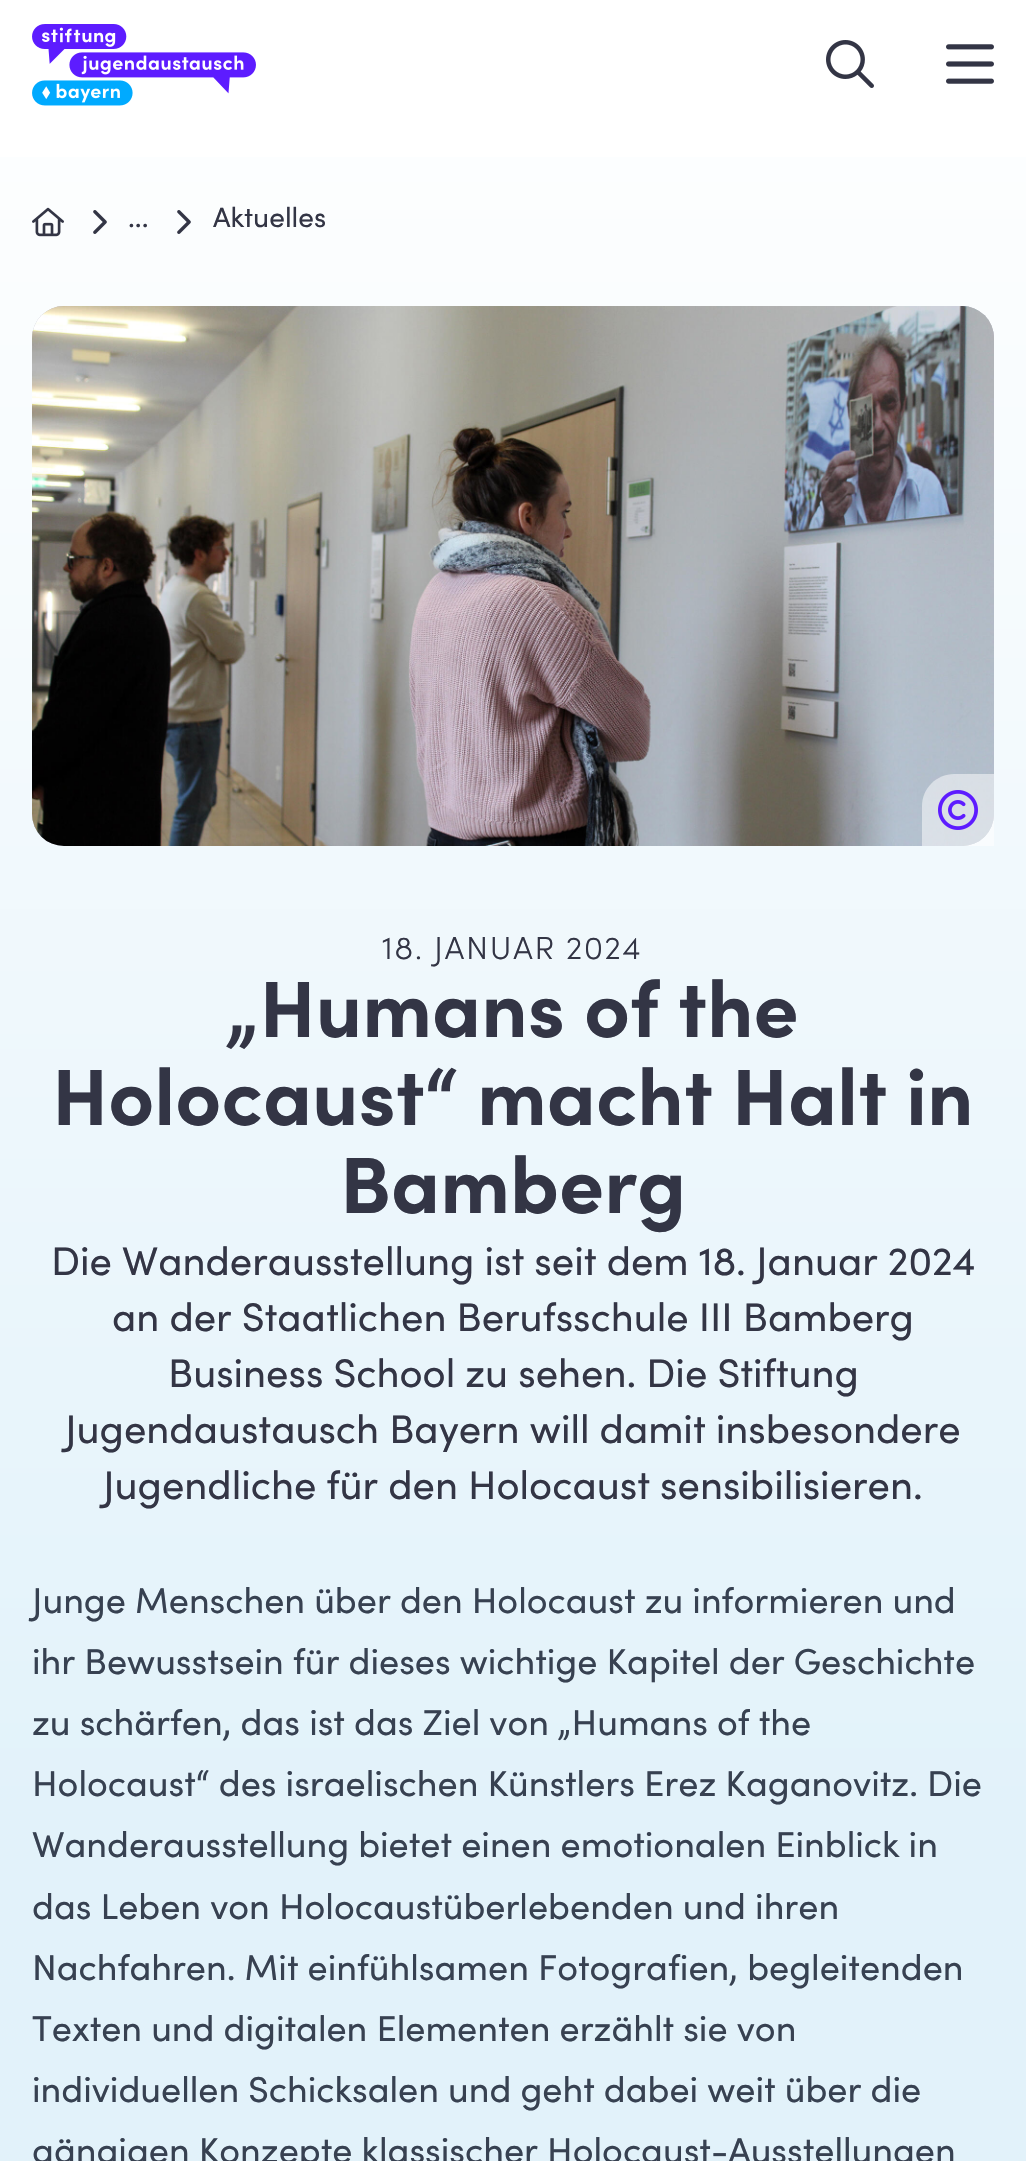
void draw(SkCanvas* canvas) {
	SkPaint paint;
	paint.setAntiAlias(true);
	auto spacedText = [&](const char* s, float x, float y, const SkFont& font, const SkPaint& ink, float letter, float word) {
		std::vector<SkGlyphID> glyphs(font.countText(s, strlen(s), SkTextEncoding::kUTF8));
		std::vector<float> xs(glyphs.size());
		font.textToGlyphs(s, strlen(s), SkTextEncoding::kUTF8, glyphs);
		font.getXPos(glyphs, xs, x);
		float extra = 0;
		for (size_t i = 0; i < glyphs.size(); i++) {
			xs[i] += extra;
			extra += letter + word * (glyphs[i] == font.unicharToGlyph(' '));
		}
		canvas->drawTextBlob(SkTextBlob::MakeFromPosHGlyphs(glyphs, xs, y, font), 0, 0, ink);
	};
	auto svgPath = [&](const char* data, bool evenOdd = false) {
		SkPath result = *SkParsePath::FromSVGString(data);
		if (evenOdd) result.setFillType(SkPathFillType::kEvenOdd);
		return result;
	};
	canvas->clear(0xffffffff);
	{
		const SkColor colors[] = {0xffffffff, 0xffe2f2fa, 0xffe2f2fa};
		const float stops[] = {0, 0.26, 1};
		const SkPoint ends[] = {{513, 0}, {513, 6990}};
		paint.setShader(SkGradientShader::MakeLinear(ends, colors, stops, 3, SkTileMode::kClamp));
		paint.setAlpha(255);
	}
	canvas->drawRect(SkRect::MakeXYWH(0, 157, 1026, 2004), paint);
	canvas->drawImageRect(SkImages::DeferredFromEncodedData(SkData::MakeFromFileName("img1.png")), SkRect::MakeXYWH(32, 24, 224, 82), SkSamplingOptions());
	canvas->drawImageRect(SkImages::DeferredFromEncodedData(SkData::MakeFromFileName("img2.png")), SkRect::MakeXYWH(826, 40, 48, 48), SkSamplingOptions());
	canvas->drawImageRect(SkImages::DeferredFromEncodedData(SkData::MakeFromFileName("img3.png")), SkRect::MakeXYWH(946, 44, 48, 40), SkSamplingOptions());
	canvas->drawImageRect(SkImages::DeferredFromEncodedData(SkData::MakeFromFileName("img4.png")), SkRect::MakeXYWH(32, 207, 32, 30), SkSamplingOptions());
	canvas->drawImageRect(SkImages::DeferredFromEncodedData(SkData::MakeFromFileName("img5.png")), SkRect::MakeXYWH(93, 210, 14, 24), SkSamplingOptions());
	SkFont f1(fontMgr->matchFamilyStyle("Sofia", SkFontStyle::Normal()), 28);
	f1.setSubpixel(true);
	paint.setShader(nullptr);
	paint.setColor(0xff333545);
	canvas->drawString("...", 128, 227, f1, paint);
	canvas->drawImageRect(SkImages::DeferredFromEncodedData(SkData::MakeFromFileName("img5.png")), SkRect::MakeXYWH(177, 210, 14, 24), SkSamplingOptions());
	canvas->drawString("Aktuelles", 213, 227, f1, paint);
	{
		const SkColor colors[] = {0xffc3c3c3, 0xffb5b7c7};
		const float stops[] = {0, 1};
		paint.setShader(SkGradientShader::MakeRadial({513, 576}, 552, colors, stops, 2, SkTileMode::kClamp));
		paint.setAlpha(255);
	}
	canvas->drawRoundRect(SkRect::MakeXYWH(32, 306, 962, 540), 32, 32, paint);
	canvas->drawImageRect(SkImages::DeferredFromEncodedData(SkData::MakeFromFileName("img6.png")), SkRect::MakeXYWH(32, 306, 962, 540), SkSamplingOptions());
	paint.setShader(nullptr);
	paint.setColor(0x80ffffff);
	canvas->drawPath(svgPath("M954 774H994V846H922V806C922 788.5 936.5 774 954 774Z"), paint);
	canvas->drawImageRect(SkImages::DeferredFromEncodedData(SkData::MakeFromFileName("img7.png")), SkRect::MakeXYWH(938, 790, 40, 40), SkSamplingOptions());
	SkFont f2(fontMgr->matchFamilyStyle("Sofia", SkFontStyle(300, SkFontStyle::kNormal_Width, SkFontStyle::kUpright_Slant)), 32);
	f2.setSubpixel(true);
	paint.setColor(0xff333545);
	spacedText("18. JANUAR 2024", 382, 959, f2, paint, 1.75, 0);
	SkFont f3(fontMgr->matchFamilyStyle("Sofia", SkFontStyle::Bold()), 80);
	f3.setSubpixel(true);
	canvas->drawString("„Humans of the", 227, 1037, f3, paint);
	canvas->drawString("Holocaust“ macht Halt in", 52, 1125, f3, paint);
	canvas->drawString("Bamberg", 340, 1213, f3, paint);
	SkFont f4(fontMgr->matchFamilyStyle("Sofia", SkFontStyle::Normal()), 40);
	f4.setSubpixel(true);
	canvas->drawString("Die Wanderausstellung ist seit dem 18. Januar 2024", 51, 1275, f4, paint);
	canvas->drawString("an der Staatlichen Berufsschule III Bamberg", 112, 1331, f4, paint);
	canvas->drawString("Business School zu sehen. Die Stiftung", 168, 1387, f4, paint);
	canvas->drawString("Jugendaustausch Bayern will damit insbesondere", 65, 1443, f4, paint);
	canvas->drawString("Jugendliche für den Holocaust sensibilisieren.", 103, 1499, f4, paint);
	SkFont f5(fontMgr->matchFamilyStyle("Sofia", SkFontStyle::Normal()), 36);
	f5.setSubpixel(true);
	paint.setColor(0xff374151);
	canvas->drawString("Junge Menschen über den Holocaust zu informieren und", 32, 1613, f5, paint);
	canvas->drawString("ihr Bewusstsein für dieses wichtige Kapitel der Geschichte", 32, 1674, f5, paint);
	canvas->drawString("zu schärfen, das ist das Ziel von „Humans of the", 32, 1735, f5, paint);
	canvas->drawString("Holocaust“ des israelischen Künstlers Erez Kaganovitz. Die", 32, 1796, f5, paint);
	canvas->drawString("Wanderausstellung bietet einen emotionalen Einblick in", 32, 1857, f5, paint);
	canvas->drawString("das Leben von Holocaustüberlebenden und ihren", 32, 1919, f5, paint);
	canvas->drawString("Nachfahren. Mit einfühlsamen Fotografien, begleitenden", 32, 1980, f5, paint);
	canvas->drawString("Texten und digitalen Elementen erzählt sie von", 32, 2041, f5, paint);
	canvas->drawString("individuellen Schicksalen und geht dabei weit über die", 32, 2102, f5, paint);
	canvas->drawString("gängigen Konzepte klassischer Holocaust-Ausstellungen", 32, 2163, f5, paint);
}
